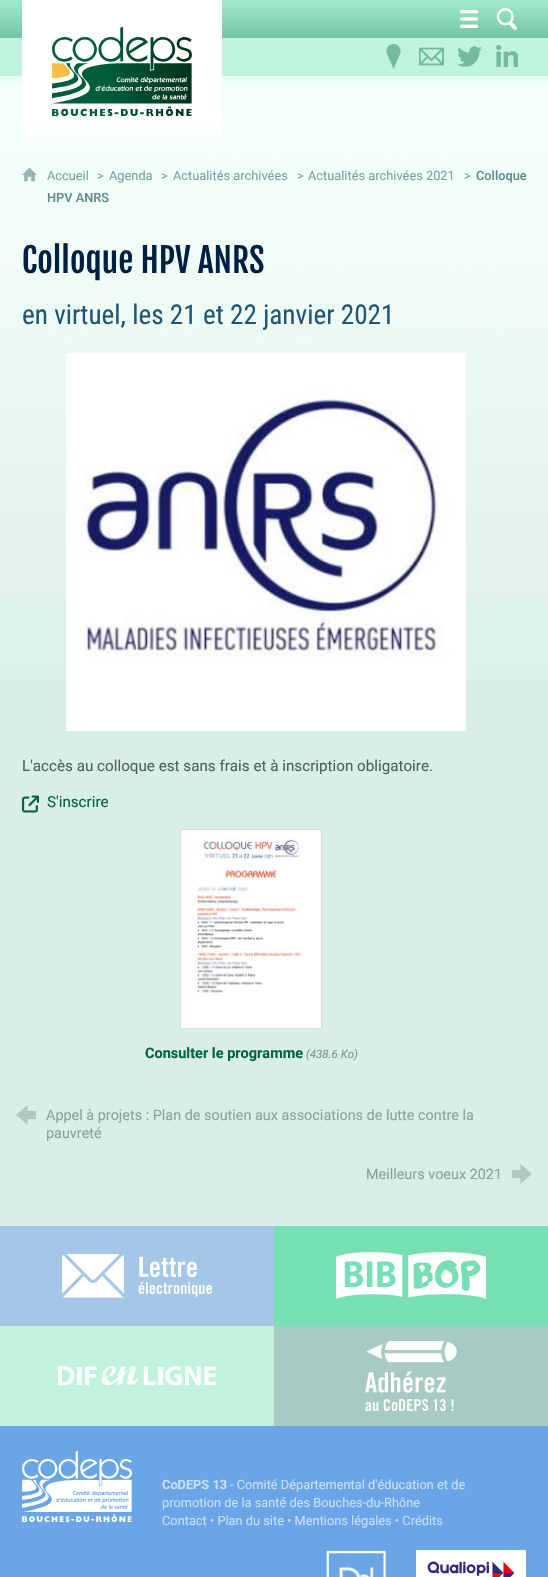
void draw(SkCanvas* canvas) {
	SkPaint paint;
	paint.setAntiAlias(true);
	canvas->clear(0xffb3ddcc);
	canvas->drawImageRect(SkImages::DeferredFromEncodedData(SkData::MakeFromFileName("img1.png")), SkRect::MakeXYWH(0, 76, 548, 604), SkSamplingOptions());
	{
		const SkColor colors[] = {0xffa0edce, 0xff74c3a2};
		const float stops[] = {0, 1};
		const SkPoint ends[] = {{274, 0}, {274, 38}};
		paint.setShader(SkGradientShader::MakeLinear(ends, colors, stops, 2, SkTileMode::kClamp));
		paint.setAlpha(255);
	}
	canvas->drawRect(SkRect::MakeXYWH(0, 0, 548, 38), paint);
	paint.setShader(nullptr);
	paint.setColor(0xffc0f3de);
	canvas->drawRect(SkRect::MakeXYWH(0, 38, 548, 38), paint);
	paint.setColor(0x80ffffff);
	canvas->drawRect(SkRect::MakeXYWH(0, 84, 548, 1142), paint);
	{
		const SkColor colors[] = {0xffffffff, 0xffffffff, 0x00ffffff};
		const float stops[] = {0.1, 0.7, 1};
		const SkPoint ends[] = {{122, 0}, {122, 160}};
		paint.setShader(SkGradientShader::MakeLinear(ends, colors, stops, 3, SkTileMode::kClamp));
		paint.setAlpha(255);
	}
	canvas->drawRect(SkRect::MakeXYWH(22, 0, 200, 150), paint);
	canvas->drawImageRect(SkImages::DeferredFromEncodedData(SkData::MakeFromFileName("img2.png")), SkRect::MakeXYWH(52, 27, 140, 89), SkSamplingOptions());
	canvas->drawImageRect(SkImages::DeferredFromEncodedData(SkData::MakeFromFileName("img3.png")), SkRect::MakeXYWH(386, 44, 15, 25), SkSamplingOptions());
	canvas->drawImageRect(SkImages::DeferredFromEncodedData(SkData::MakeFromFileName("img4.png")), SkRect::MakeXYWH(419, 47, 25, 19), SkSamplingOptions());
	canvas->drawImageRect(SkImages::DeferredFromEncodedData(SkData::MakeFromFileName("img5.png")), SkRect::MakeXYWH(457, 46, 25, 21), SkSamplingOptions());
	canvas->drawImageRect(SkImages::DeferredFromEncodedData(SkData::MakeFromFileName("img6.png")), SkRect::MakeXYWH(496, 45, 22, 22), SkSamplingOptions());
	canvas->drawImageRect(SkImages::DeferredFromEncodedData(SkData::MakeFromFileName("img7.png")), SkRect::MakeXYWH(459, 10, 20, 18), SkSamplingOptions());
	canvas->drawImageRect(SkImages::DeferredFromEncodedData(SkData::MakeFromFileName("img8.png")), SkRect::MakeXYWH(497, 8, 20, 22), SkSamplingOptions());
	canvas->drawImageRect(SkImages::DeferredFromEncodedData(SkData::MakeFromFileName("img9.png")), SkRect::MakeXYWH(22, 167, 15, 15), SkSamplingOptions());
	SkFont f1(fontMgr->matchFamilyStyle("Roboto", SkFontStyle::Normal()), 12.8);
	f1.setSubpixel(true);
	paint.setShader(nullptr);
	paint.setColor(0xff77a3a3);
	canvas->drawString("Accueil", 47, 180, f1, paint);
	canvas->drawString(">", 97, 180, f1, paint);
	canvas->drawString("Agenda", 109, 180, f1, paint);
	canvas->drawString(">", 161, 180, f1, paint);
	canvas->drawString("Actualités archivées", 173, 180, f1, paint);
	canvas->drawString(">", 297, 180, f1, paint);
	canvas->drawString("Actualités archivées 2021", 308, 180, f1, paint);
	canvas->drawString(">", 464, 180, f1, paint);
	SkFont f2(fontMgr->matchFamilyStyle("Roboto", SkFontStyle(500, SkFontStyle::kNormal_Width, SkFontStyle::kUpright_Slant)), 12.8);
	f2.setSubpixel(true);
	paint.setColor(0xff5d8a8a);
	canvas->drawString("Colloque", 476, 180, f2, paint);
	canvas->drawString("HPV ANRS", 47, 202, f2, paint);
	SkFont f3(fontMgr->matchFamilyStyle("Fjalla One", SkFontStyle::Normal()), 33.5);
	f3.setSubpixel(true);
	paint.setColor(0xff001f42);
	canvas->drawString("Colloque HPV ANRS", 22, 273, f3, paint);
	SkFont f4(fontMgr->matchFamilyStyle("Roboto Condensed", SkFontStyle::Normal()), 27.25);
	f4.setSubpixel(true);
	paint.setColor(0xff205675);
	canvas->drawString("en virtuel, les 21 et 22 janvier 2021", 22, 324, f4, paint);
	paint.setStroke(true);
	paint.setStrokeWidth(3);
	paint.setColor(0xffffffff);
	canvas->drawRect(SkRect::MakeXYWH(67.5, 354.5, 397, 375), paint);
	canvas->drawImageRect(SkImages::DeferredFromEncodedData(SkData::MakeFromFileName("img10.png")), SkRect::MakeXYWH(69, 356, 394, 372), SkSamplingOptions());
	SkFont f5(fontMgr->matchFamilyStyle("Roboto", SkFontStyle::Normal()), 15.2);
	f5.setSubpixel(true);
	paint.setStroke(false);
	paint.setColor(0xff505f59);
	canvas->drawString("L'accès au colloque est sans frais et à inscription obligatoire.", 22, 771, f5, paint);
	canvas->drawImageRect(SkImages::DeferredFromEncodedData(SkData::MakeFromFileName("img11.png")), SkRect::MakeXYWH(22, 795, 17, 18), SkSamplingOptions());
	paint.setColor(0xff00653e);
	canvas->drawString("S'inscrire", 47, 807, f5, paint);
	paint.setStroke(true);
	paint.setStrokeWidth(1);
	paint.setColor(0xffd9dcdb);
	canvas->drawRect(SkRect::MakeXYWH(180.5, 829.5, 141, 199), paint);
	canvas->drawImageRect(SkImages::DeferredFromEncodedData(SkData::MakeFromFileName("img12.png")), SkRect::MakeXYWH(181, 830, 140, 198), SkSamplingOptions());
	SkFont f6(fontMgr->matchFamilyStyle("Roboto", SkFontStyle::Bold()), 14.5);
	f6.setSubpixel(true);
	paint.setStroke(false);
	paint.setColor(0xff00653e);
	canvas->drawString("Consulter le programme", 145, 1058, f6, paint);
	SkFont f7(fontMgr->matchFamilyStyle("Roboto", SkFontStyle::Italic()), 11.5);
	f7.setSubpixel(true);
	paint.setColor(0xff81948c);
	canvas->drawString("(438.6 Ko)", 306, 1058, f7, paint);
	canvas->drawImageRect(SkImages::DeferredFromEncodedData(SkData::MakeFromFileName("img13.png")), SkRect::MakeXYWH(16, 1105, 20, 20), SkSamplingOptions());
	SkFont f8(fontMgr->matchFamilyStyle("Roboto", SkFontStyle::Normal()), 14.4);
	f8.setSubpixel(true);
	paint.setColor(0xff8ea099);
	canvas->drawString("Appel à projets : Plan de soutien aux associations de lutte contre la", 46, 1120, f8, paint);
	canvas->drawString("pauvreté", 46, 1138, f8, paint);
	canvas->drawString("Meilleurs voeux 2021", 366, 1179, f8, paint);
	canvas->drawImageRect(SkImages::DeferredFromEncodedData(SkData::MakeFromFileName("img14.png")), SkRect::MakeXYWH(512, 1164, 20, 20), SkSamplingOptions());
	paint.setColor(0xffa4c7e7);
	canvas->drawRect(SkRect::MakeXYWH(0, 1226, 274, 100), paint);
	canvas->drawImageRect(SkImages::DeferredFromEncodedData(SkData::MakeFromFileName("img15.png")), SkRect::MakeXYWH(62, 1254, 150, 44), SkSamplingOptions());
	paint.setColor(0xff76dfb4);
	canvas->drawRect(SkRect::MakeXYWH(274, 1226, 274, 100), paint);
	canvas->drawImageRect(SkImages::DeferredFromEncodedData(SkData::MakeFromFileName("img16.png")), SkRect::MakeXYWH(336, 1252, 150, 47), SkSamplingOptions());
	paint.setColor(0xffc1f2de);
	canvas->drawRect(SkRect::MakeXYWH(0, 1326, 274, 100), paint);
	canvas->drawImageRect(SkImages::DeferredFromEncodedData(SkData::MakeFromFileName("img17.png")), SkRect::MakeXYWH(57, 1366, 160, 20), SkSamplingOptions());
	paint.setColor(0xffa7cac3);
	canvas->drawRect(SkRect::MakeXYWH(274, 1326, 274, 100), paint);
	canvas->drawImageRect(SkImages::DeferredFromEncodedData(SkData::MakeFromFileName("img18.png")), SkRect::MakeXYWH(365, 1341, 92, 70), SkSamplingOptions());
	paint.setColor(0xff6aa5e7);
	canvas->drawRect(SkRect::MakeXYWH(0, 1426, 548, 151), paint);
	canvas->drawImageRect(SkImages::DeferredFromEncodedData(SkData::MakeFromFileName("img19.png")), SkRect::MakeXYWH(22, 1451, 110, 71), SkSamplingOptions());
	SkFont f9(fontMgr->matchFamilyStyle("Roboto", SkFontStyle::Bold()), 12.8);
	f9.setSubpixel(true);
	paint.setColor(0xffcbdff7);
	canvas->drawString("CoDEPS 13", 162, 1489, f9, paint);
	canvas->drawString("- Comité Départemental d'éducation et de", 230, 1489, f1, paint);
	canvas->drawString("promotion de la santé des Bouches-du-Rhône", 162, 1507, f1, paint);
	canvas->drawString("Contact • Plan du site • Mentions légales • Crédits", 162, 1525, f1, paint);
	canvas->drawImageRect(SkImages::DeferredFromEncodedData(SkData::MakeFromFileName("img20.png")), SkRect::MakeXYWH(326, 1550, 60, 27), SkSamplingOptions());
	canvas->drawImageRect(SkImages::DeferredFromEncodedData(SkData::MakeFromFileName("img21.png")), SkRect::MakeXYWH(416, 1550, 110, 27), SkSamplingOptions());
}
